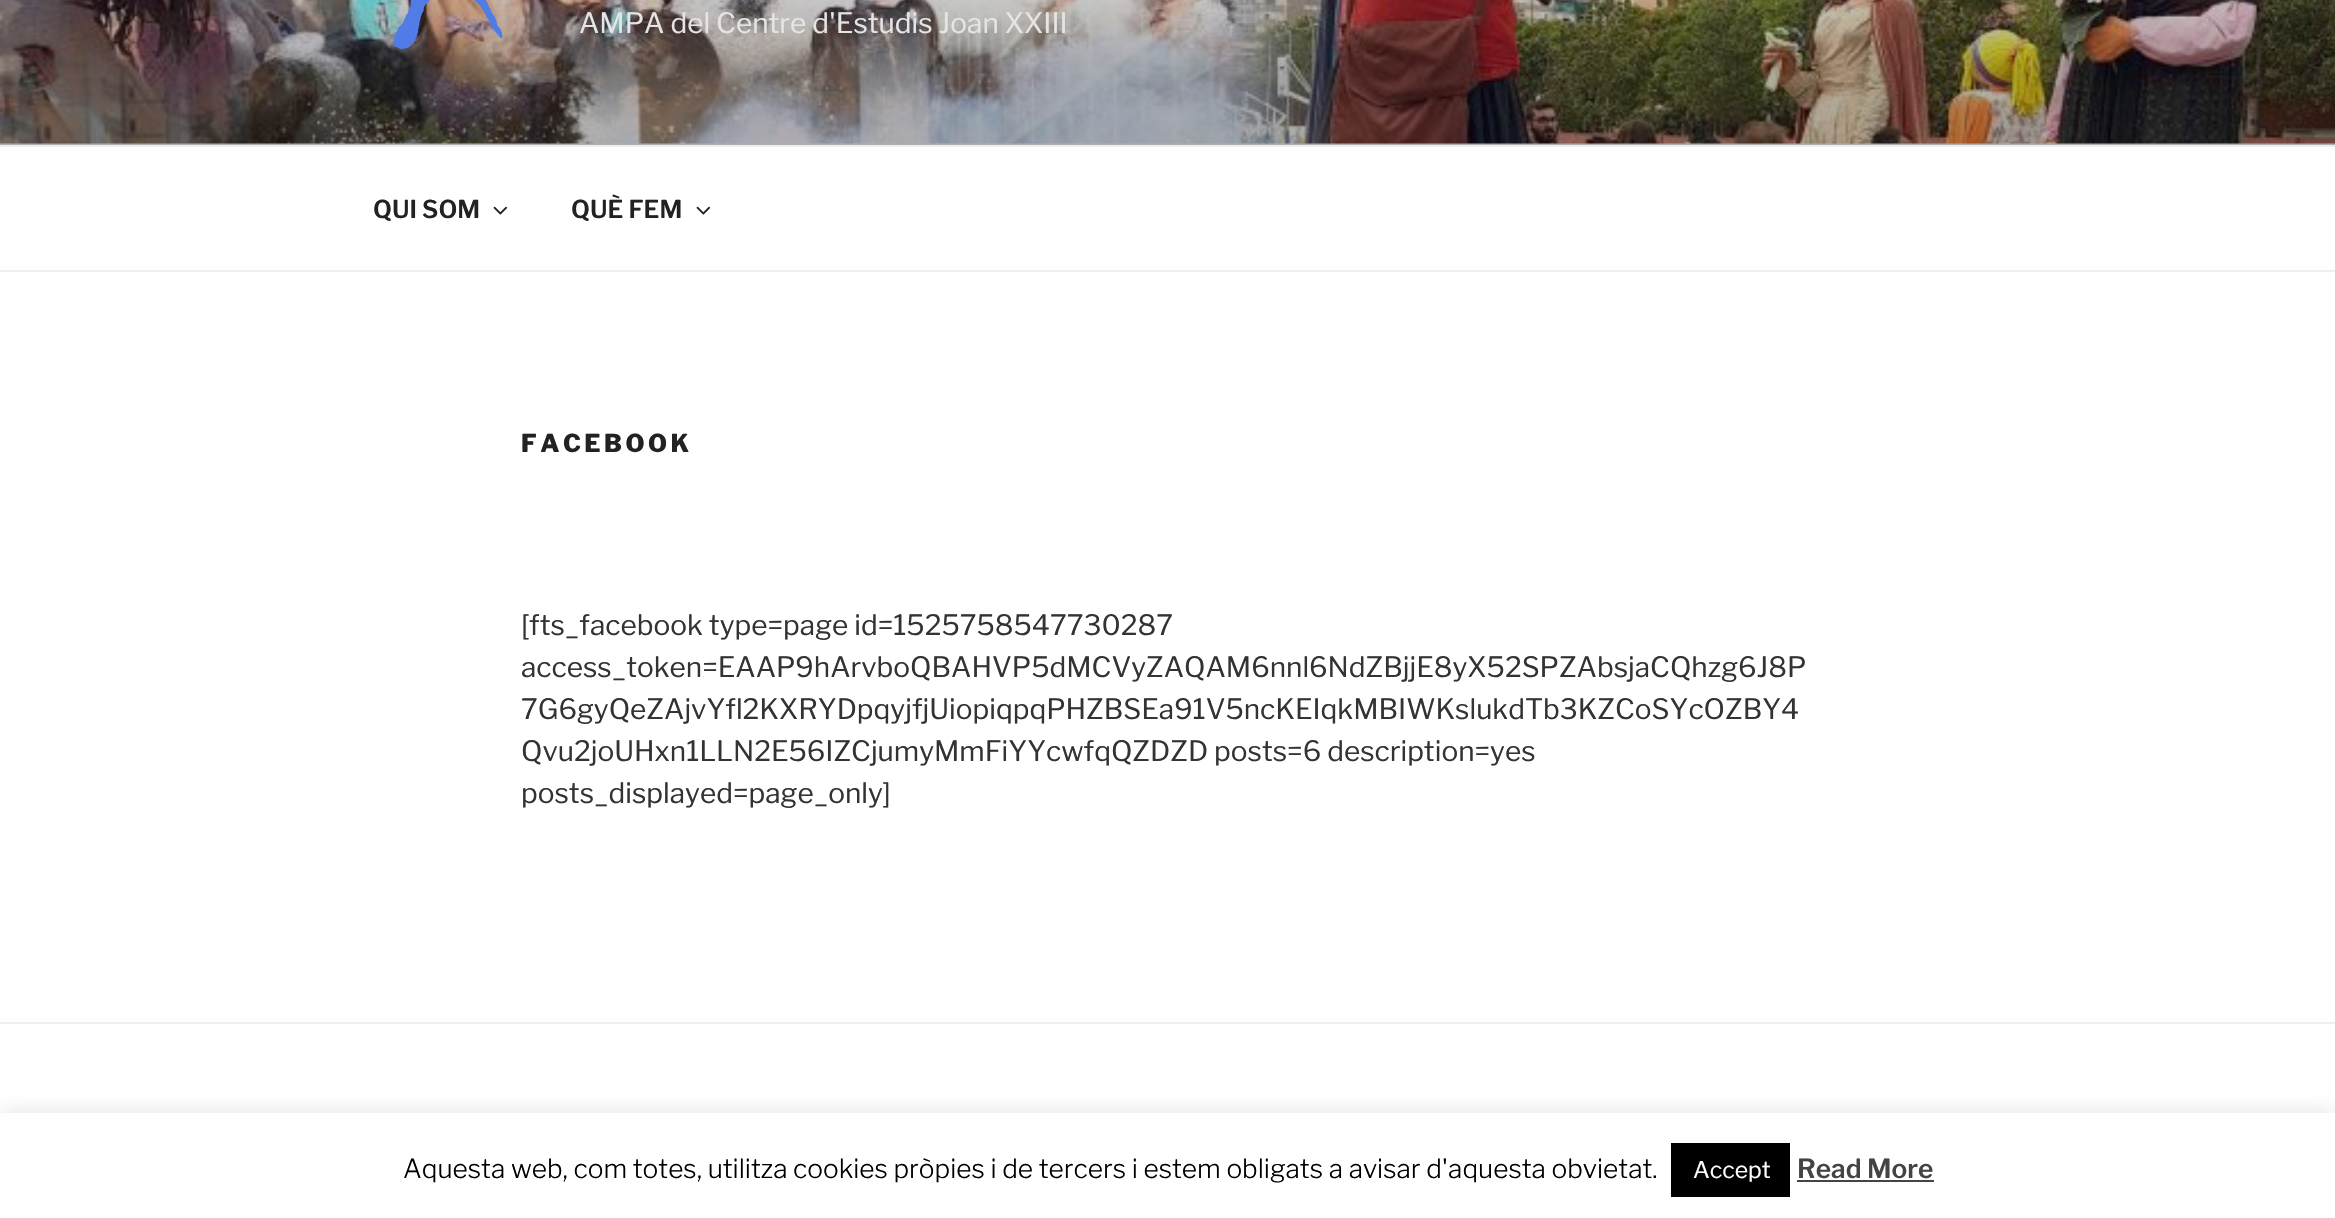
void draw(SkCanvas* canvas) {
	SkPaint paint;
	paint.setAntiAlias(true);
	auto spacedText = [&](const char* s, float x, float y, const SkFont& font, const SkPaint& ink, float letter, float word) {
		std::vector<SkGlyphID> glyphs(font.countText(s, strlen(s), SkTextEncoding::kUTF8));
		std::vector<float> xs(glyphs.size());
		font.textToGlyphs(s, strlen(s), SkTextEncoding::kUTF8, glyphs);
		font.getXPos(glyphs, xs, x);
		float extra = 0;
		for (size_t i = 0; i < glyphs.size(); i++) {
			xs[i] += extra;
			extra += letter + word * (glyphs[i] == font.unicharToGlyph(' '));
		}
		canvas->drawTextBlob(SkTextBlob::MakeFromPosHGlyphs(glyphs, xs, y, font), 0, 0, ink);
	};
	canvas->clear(0xffffffff);
	paint.setColor(0xfffafafa);
	canvas->drawRect(SkRect::MakeXYWH(0, 143, 2335, 2), paint);
	canvas->drawImageRect(SkImages::DeferredFromEncodedData(SkData::MakeFromFileName("img1.png")), SkRect::MakeXYWH(0, 0, 2335, 144), SkSamplingOptions());
	{
		const SkColor colors[] = {0x00000000, 0x4d000000, 0x4d000000};
		const float stops[] = {0, 0.75, 1};
		const SkPoint ends[] = {{1168, -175}, {1168, 145}};
		paint.setShader(SkGradientShader::MakeLinear(ends, colors, stops, 3, SkTileMode::kClamp));
		paint.setAlpha(255);
	}
	canvas->drawRect(SkRect::MakeXYWH(0, 0, 2335, 145), paint);
	canvas->drawImageRect(SkImages::DeferredFromEncodedData(SkData::MakeFromFileName("img2.png")), SkRect::MakeXYWH(393, 0, 110, 49), SkSamplingOptions());
	SkFont f1(fontMgr->matchFamilyStyle("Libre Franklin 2", SkFontStyle(100, SkFontStyle::kNormal_Width, SkFontStyle::kUpright_Slant)), 28);
	f1.setSubpixel(true);
	paint.setShader(nullptr);
	paint.setColor(0xffe6e5e5);
	canvas->drawString("AMPA del Centre d'Estudis Joan XXIII", 579, 33, f1, paint);
	paint.setColor(0xffeeeeee);
	canvas->drawRect(SkRect::MakeXYWH(0, 145, 2335, 2), paint);
	canvas->drawRect(SkRect::MakeXYWH(0, 270, 2335, 2), paint);
	SkFont f2(fontMgr->matchFamilyStyle("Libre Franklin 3", SkFontStyle(100, SkFontStyle::kNormal_Width, SkFontStyle::kUpright_Slant)), 24.5);
	f2.setSubpixel(true);
	paint.setColor(0xff222222);
	canvas->drawString("QUI SOM", 373, 218, f2, paint);
	canvas->drawImageRect(SkImages::DeferredFromEncodedData(SkData::MakeFromFileName("img3.png")), SkRect::MakeXYWH(493, 206, 15, 9), SkSamplingOptions());
	canvas->drawString("QUÈ FEM", 571, 218, f2, paint);
	canvas->drawImageRect(SkImages::DeferredFromEncodedData(SkData::MakeFromFileName("img3.png")), SkRect::MakeXYWH(696, 206, 15, 9), SkSamplingOptions());
	SkFont f3(fontMgr->matchFamilyStyle("Libre Franklin", SkFontStyle(100, SkFontStyle::kNormal_Width, SkFontStyle::kUpright_Slant)), 24.5);
	f3.setSubpixel(true);
	spacedText("FACEBOOK", 521, 452, f3, paint, 3.5, 0);
	paint.setColor(0xff333333);
	canvas->drawString("[fts_facebook type=page id=1525758547730287", 521, 635, f1, paint);
	canvas->drawString("access_token=EAAP9hArvboQBAHVP5dMCVyZAQAM6nnl6NdZBjjE8yX52SPZAbsjaCQhzg6J8P", 521, 677, f1, paint);
	canvas->drawString("7G6gyQeZAjvYfl2KXRYDpqyjfjUiopiqpqPHZBSEa91V5ncKEIqkMBIWKslukdTb3KZCoSYcOZBY4", 521, 719, f1, paint);
	canvas->drawString("Qvu2joUHxn1LLN2E56IZCjumyMmFiYYcwfqQZDZD posts=6 description=yes", 521, 761, f1, paint);
	canvas->drawString("posts_displayed=page_only]", 521, 803, f1, paint);
	paint.setColor(0xffeeeeee);
	canvas->drawRect(SkRect::MakeXYWH(0, 1022, 2335, 2), paint);
	paint.setColor(0x4dacabab);
	paint.setMaskFilter(SkMaskFilter::MakeBlur(kNormal_SkBlurStyle, 9));
	canvas->drawRect(SkRect::MakeXYWH(0, 1111, 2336, 105), paint);
	paint.setMaskFilter(nullptr);
	paint.setColor(0xffffffff);
	canvas->drawRect(SkRect::MakeXYWH(0, 1113, 2335, 105), paint);
	SkFont f4(fontMgr->matchFamilyStyle("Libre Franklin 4", SkFontStyle(100, SkFontStyle::kNormal_Width, SkFontStyle::kUpright_Slant)), 26.25);
	f4.setSubpixel(true);
	paint.setColor(0xff000000);
	canvas->drawString("Aquesta web, com totes, utilitza cookies pròpies i de tercers i estem obligats a avisar d'aquesta obvietat.", 403, 1178, f4, paint);
	canvas->drawRect(SkRect::MakeXYWH(1671, 1143, 119, 54), paint);
	SkFont f5(fontMgr->matchFamilyStyle("Libre Franklin 2", SkFontStyle(100, SkFontStyle::kNormal_Width, SkFontStyle::kUpright_Slant)), 23);
	f5.setSubpixel(true);
	paint.setColor(0xffffffff);
	canvas->drawString("Accept", 1693, 1178, f5, paint);
	SkFont f6(fontMgr->matchFamilyStyle("Libre Franklin 3", SkFontStyle(100, SkFontStyle::kNormal_Width, SkFontStyle::kUpright_Slant)), 26.25);
	f6.setSubpixel(true);
	paint.setColor(0xff444444);
	canvas->drawString("Read More", 1797, 1178, f6, paint);
	canvas->drawRect(SkRect::MakeXYWH(1797, 1180, 137, 2), paint);
}
